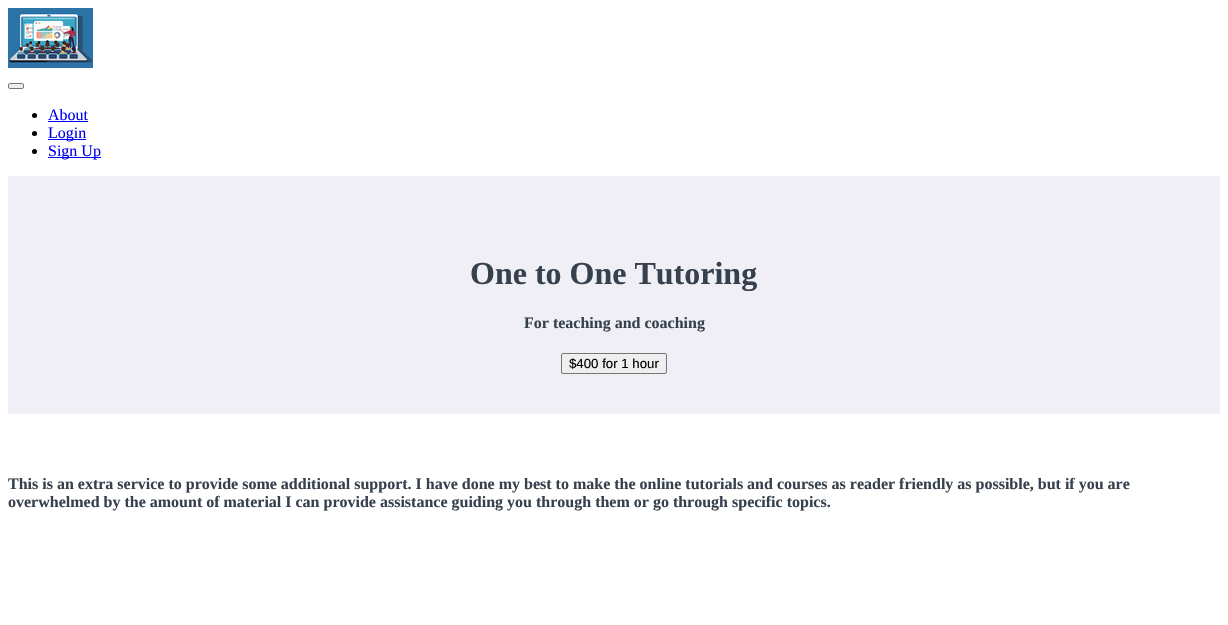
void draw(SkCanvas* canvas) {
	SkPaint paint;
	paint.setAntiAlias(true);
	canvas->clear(0xffffffff);
	canvas->drawImageRect(SkImages::DeferredFromEncodedData(SkData::MakeFromFileName("img1.png")), SkRect::MakeXYWH(8, 8, 85, 60), SkSamplingOptions());
	paint.setColor(0xffefefef);
	canvas->drawRoundRect(SkRect::MakeXYWH(8.5, 83.5, 15, 5), 1.5, 1.5, paint);
	paint.setStroke(true);
	paint.setStrokeWidth(1);
	paint.setColor(0xff767676);
	canvas->drawRoundRect(SkRect::MakeXYWH(8.5, 83.5, 15, 5), 1.5, 1.5, paint);
	paint.setStroke(false);
	paint.setColor(0xff000000);
	canvas->drawCircle(34.5, 115.5, 2.5, paint);
	SkFont f1(fontMgr->matchFamilyStyle("Liberation Serif", SkFontStyle::Normal()), 16);
	f1.setSubpixel(true);
	paint.setColor(0xff0000ee);
	canvas->drawString("About", 48, 120, f1, paint);
	canvas->drawRect(SkRect::MakeXYWH(48, 121, 40, 1), paint);
	paint.setColor(0xff000000);
	canvas->drawCircle(34.5, 133.5, 2.5, paint);
	paint.setColor(0xff0000ee);
	canvas->drawRect(SkRect::MakeXYWH(48, 139, 38, 1), paint);
	canvas->drawString("Login", 48, 138, f1, paint);
	paint.setColor(0xff000000);
	canvas->drawCircle(34.5, 151.5, 2.5, paint);
	paint.setColor(0xff0000ee);
	canvas->drawRect(SkRect::MakeXYWH(48, 157, 53, 1), paint);
	canvas->drawString("Sign Up", 48, 156, f1, paint);
	paint.setColor(0xffefeff5);
	canvas->drawRect(SkRect::MakeXYWH(8, 176, 1212, 238), paint);
	SkFont f2(fontMgr->matchFamilyStyle("Liberation Serif", SkFontStyle::Bold()), 32);
	f2.setSubpixel(true);
	paint.setColor(0xff36414d);
	canvas->drawString("One to One Tutoring", 470, 284, f2, paint);
	SkFont f3(fontMgr->matchFamilyStyle("Liberation Serif", SkFontStyle::Bold()), 16);
	f3.setSubpixel(true);
	canvas->drawString("For teaching and coaching", 524, 328, f3, paint);
	paint.setColor(0xffefefef);
	canvas->drawRoundRect(SkRect::MakeXYWH(561.5, 353.5, 105, 20), 1.5, 1.5, paint);
	paint.setStroke(true);
	paint.setColor(0xff767676);
	canvas->drawRoundRect(SkRect::MakeXYWH(561.5, 353.5, 105, 20), 1.5, 1.5, paint);
	SkFont f4(fontMgr->matchFamilyStyle("Liberation Sans", SkFontStyle::Normal()), 13.25);
	f4.setSubpixel(true);
	paint.setStroke(false);
	paint.setColor(0xff000000);
	canvas->drawString("$400 for 1 hour", 569, 368, f4, paint);
	paint.setColor(0xff36414d);
	canvas->drawString("This is an extra service to provide some additional support. I have done my best to make the online tutorials and courses as reader friendly as possible, but if you are", 8, 489, f3, paint);
	canvas->drawString("overwhelmed by the amount of material I can provide assistance guiding you through them or go through specific topics.", 8, 507, f3, paint);
}
